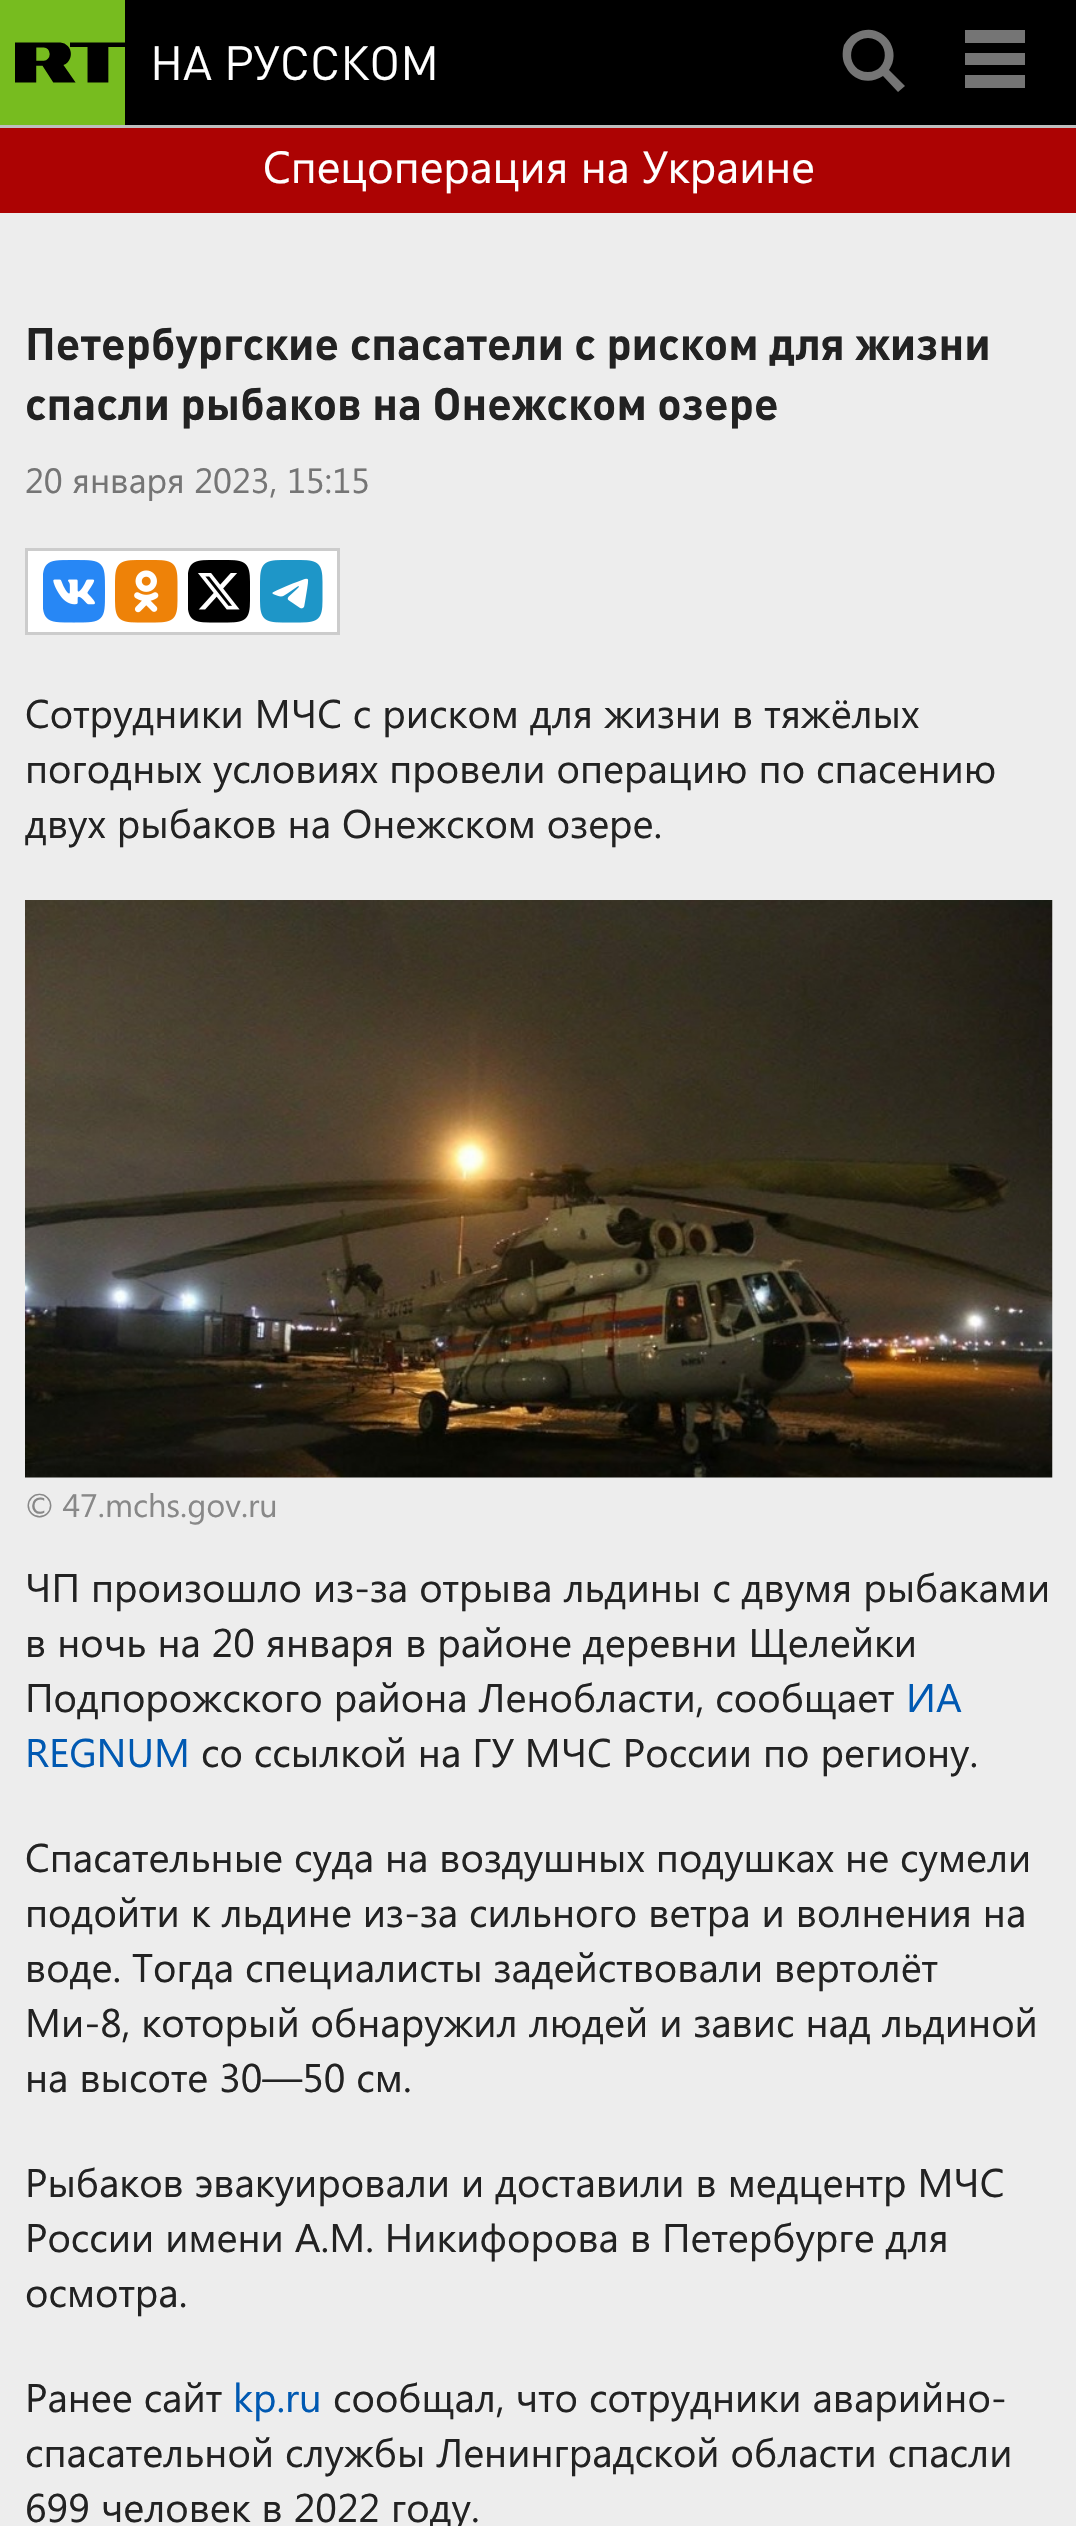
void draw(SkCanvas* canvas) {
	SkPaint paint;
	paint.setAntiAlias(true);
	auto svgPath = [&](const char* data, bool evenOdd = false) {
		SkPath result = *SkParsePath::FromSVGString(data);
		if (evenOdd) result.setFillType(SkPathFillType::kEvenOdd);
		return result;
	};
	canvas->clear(0xff000000);
	paint.setColor(0xffbebebe);
	canvas->drawRect(SkRect::MakeXYWH(0, 125, 1076, 3), paint);
	paint.setColor(0xff77bc1f);
	canvas->drawRect(SkRect::MakeXYWH(0, 0, 125, 125), paint);
	canvas->drawImageRect(SkImages::DeferredFromEncodedData(SkData::MakeFromFileName("img1.png")), SkRect::MakeXYWH(15, 42, 110, 41), SkSamplingOptions());
	SkFont f1(fontMgr->matchFamilyStyle("DIN", SkFontStyle::Normal()), 47.5);
	f1.setSubpixel(true);
	paint.setColor(0xffffffff);
	canvas->drawString("НА РУССКОМ", 150, 80, f1, paint);
	paint.setColor(0xff757575);
	canvas->drawPath(svgPath("M905 86L898 92L883 76C870 85 853 81 846 67C842 61 842 52 844 45C847 40 851 35 856 33C880 20 904 48 889 70ZM868 38C845 39 846 72 868 72C890 72 891 39 868 38Z"), paint);
	canvas->drawRect(SkRect::MakeXYWH(965, 75, 60, 13), paint);
	canvas->drawRect(SkRect::MakeXYWH(965, 30, 60, 13), paint);
	canvas->drawRect(SkRect::MakeXYWH(965, 53, 60, 12), paint);
	paint.setColor(0xffac0303);
	canvas->drawRect(SkRect::MakeXYWH(0, 128, 1076, 85), paint);
	SkFont f2(fontMgr->matchFamilyStyle("Segoe UI", SkFontStyle::Normal()), 45);
	f2.setSubpixel(true);
	paint.setColor(0xffffffff);
	canvas->drawString("Спецоперация на Украине", 263, 183, f2, paint);
	paint.setColor(0xffededed);
	canvas->drawRect(SkRect::MakeXYWH(0, 213, 1076, 2313), paint);
	SkFont f3(fontMgr->matchFamilyStyle("DIN", SkFontStyle::Bold()), 45);
	f3.setSubpixel(true);
	paint.setColor(0xff222222);
	canvas->drawString("Петербургские спасатели с риском для жизни", 25, 360, f3, paint);
	canvas->drawString("спасли рыбаков на Онежском озере", 25, 420, f3, paint);
	SkFont f4(fontMgr->matchFamilyStyle("Segoe UI", SkFontStyle::Normal()), 35);
	f4.setSubpixel(true);
	paint.setColor(0xff757575);
	canvas->drawString("20 января 2023, 15:15", 25, 493, f4, paint);
	paint.setColor(0xffffffff);
	canvas->drawRect(SkRect::MakeXYWH(26.5, 549.5, 312, 84), paint);
	paint.setStroke(true);
	paint.setStrokeWidth(3);
	paint.setColor(0xffcccccc);
	canvas->drawRect(SkRect::MakeXYWH(26.5, 549.5, 312, 84), paint);
	canvas->drawImageRect(SkImages::DeferredFromEncodedData(SkData::MakeFromFileName("img2.png")), SkRect::MakeXYWH(43, 560, 62, 63), SkSamplingOptions());
	canvas->drawImageRect(SkImages::DeferredFromEncodedData(SkData::MakeFromFileName("img3.png")), SkRect::MakeXYWH(115, 560, 63, 63), SkSamplingOptions());
	canvas->drawImageRect(SkImages::DeferredFromEncodedData(SkData::MakeFromFileName("img4.png")), SkRect::MakeXYWH(188, 560, 62, 63), SkSamplingOptions());
	canvas->drawImageRect(SkImages::DeferredFromEncodedData(SkData::MakeFromFileName("img5.png")), SkRect::MakeXYWH(260, 560, 63, 63), SkSamplingOptions());
	SkFont f5(fontMgr->matchFamilyStyle("Segoe UI", SkFontStyle::Normal()), 40);
	f5.setSubpixel(true);
	paint.setStroke(false);
	paint.setColor(0xff222222);
	canvas->drawString("Сотрудники МЧС с риском для жизни в тяжёлых", 25, 728, f5, paint);
	canvas->drawString("погодных условиях провели операцию по спасению", 25, 783, f5, paint);
	canvas->drawString("двух рыбаков на Онежском озере.", 25, 838, f5, paint);
	canvas->drawImageRect(SkImages::DeferredFromEncodedData(SkData::MakeFromFileName("img6.png")), SkRect::MakeXYWH(25, 900, 1028, 578), SkSamplingOptions());
	SkFont f6(fontMgr->matchFamilyStyle("Segoe UI", SkFontStyle::Normal()), 32.5);
	f6.setSubpixel(true);
	paint.setColor(0xff888888);
	canvas->drawString("© 47.mchs.gov.ru", 25, 1517, f6, paint);
	paint.setColor(0xff222222);
	canvas->drawString("ЧП произошло из-за отрыва льдины с двумя рыбаками", 25, 1602, f5, paint);
	canvas->drawString("в ночь на 20 января в районе деревни Щелейки", 25, 1657, f5, paint);
	canvas->drawString("Подпорожского района Ленобласти, сообщает", 25, 1712, f5, paint);
	paint.setColor(0xff0059b2);
	canvas->drawString("ИА", 906, 1712, f5, paint);
	canvas->drawString("REGNUМ", 25, 1767, f5, paint);
	paint.setColor(0xff222222);
	canvas->drawString("со ссылкой на ГУ МЧС России по региону.", 201, 1767, f5, paint);
	canvas->drawString("Спасательные суда на воздушных подушках не сумели", 25, 1872, f5, paint);
	canvas->drawString("подойти к льдине из-за сильного ветра и волнения на", 25, 1927, f5, paint);
	canvas->drawString("воде. Тогда специалисты задействовали вертолёт", 25, 1982, f5, paint);
	canvas->drawString("Ми-8, который обнаружил людей и завис над льдиной", 25, 2037, f5, paint);
	canvas->drawString("на высоте 30—50 см.", 25, 2092, f5, paint);
	canvas->drawString("Рыбаков эвакуировали и доставили в медцентр МЧС", 25, 2197, f5, paint);
	canvas->drawString("России имени А.М. Никифорова в Петербурге для", 25, 2252, f5, paint);
	canvas->drawString("осмотра.", 25, 2307, f5, paint);
	canvas->drawString("Ранее сайт", 25, 2412, f5, paint);
	paint.setColor(0xff0059b2);
	canvas->drawString("kp.ru", 233, 2412, f5, paint);
	paint.setColor(0xff222222);
	canvas->drawString("сообщал, что сотрудники аварийно-", 333, 2412, f5, paint);
	canvas->drawString("спасательной службы Ленинградской области спасли", 25, 2467, f5, paint);
	canvas->drawString("699 человек в 2022 году.", 25, 2522, f5, paint);
}
